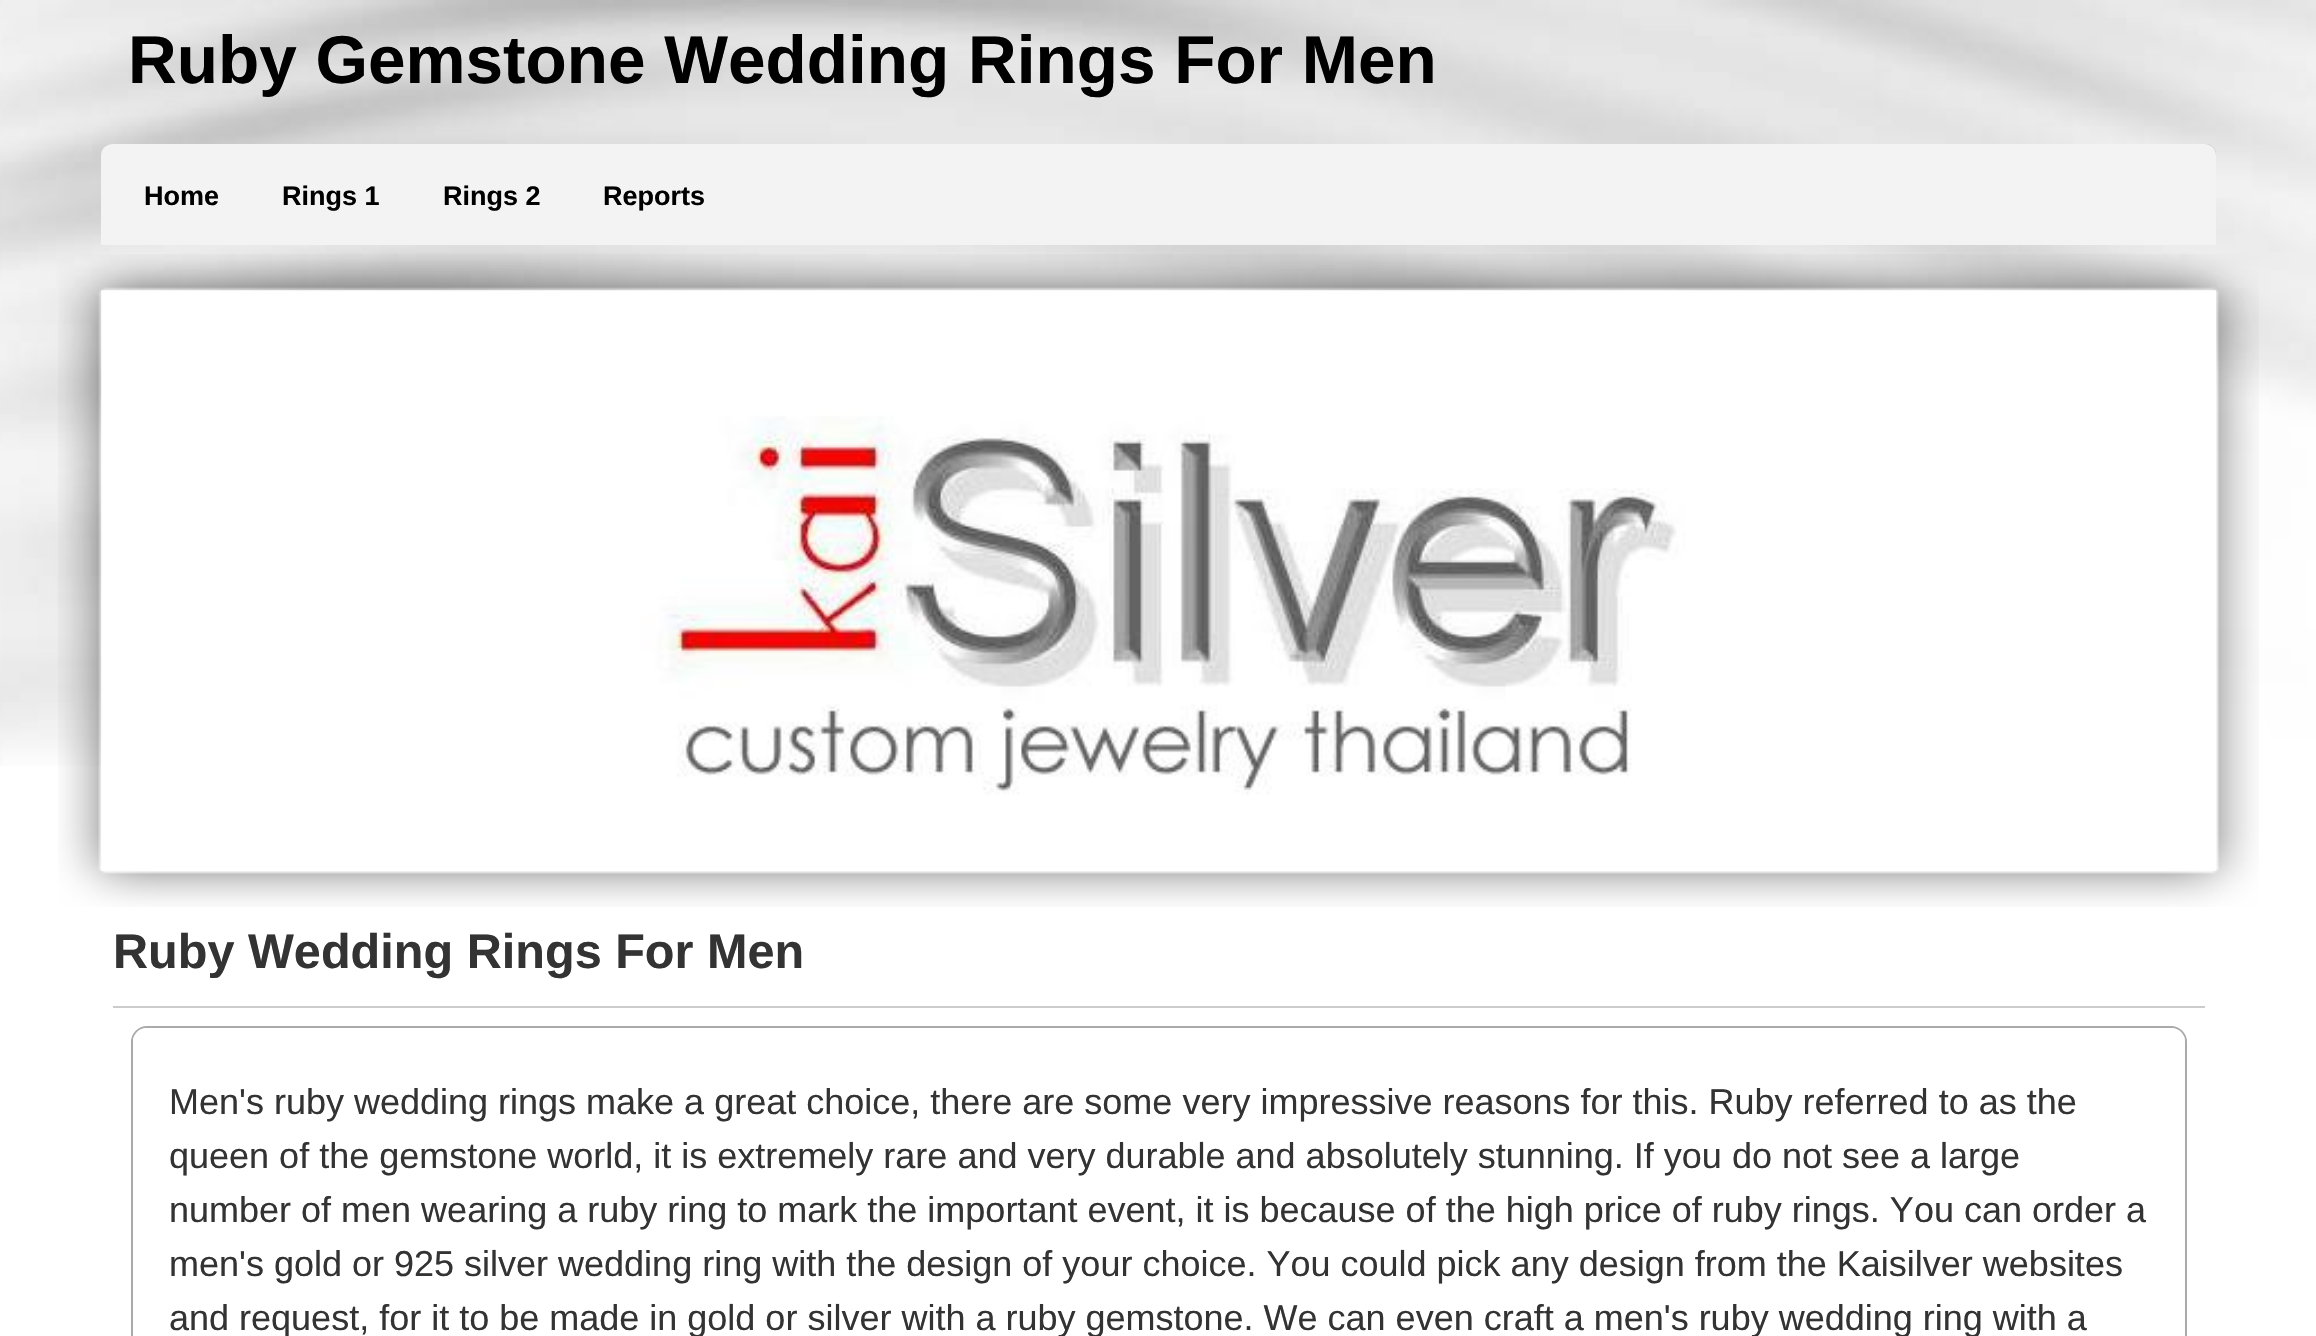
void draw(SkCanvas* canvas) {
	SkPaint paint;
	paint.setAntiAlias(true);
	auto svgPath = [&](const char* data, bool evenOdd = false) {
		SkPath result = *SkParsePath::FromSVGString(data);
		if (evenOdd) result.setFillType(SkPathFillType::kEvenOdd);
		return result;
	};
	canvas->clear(0xffffffff);
	canvas->drawImageRect(SkImages::DeferredFromEncodedData(SkData::MakeFromFileName("img1.png")), SkRect::MakeXYWH(0, 0, 2316, 766), SkSamplingOptions());
	SkFont f1(fontMgr->matchFamilyStyle("Liberation Sans", SkFontStyle::Bold()), 67.5);
	f1.setSubpixel(true);
	paint.setColor(0xff000000);
	canvas->drawString("Ruby Gemstone Wedding Rings For Men", 128, 83, f1, paint);
	canvas->drawImageRect(SkImages::DeferredFromEncodedData(SkData::MakeFromFileName("img2.png")), SkRect::MakeXYWH(101, 144, 2115, 11), SkSamplingOptions());
	paint.setColor(0xfff3f3f3);
	canvas->drawPath(svgPath("M112 144H2205C2211 144 2216 149 2216 155V245H101V155C101 149 106 144 112 144Z"), paint);
	SkFont f2(fontMgr->matchFamilyStyle("Liberation Sans", SkFontStyle::Bold()), 27);
	f2.setSubpixel(true);
	paint.setColor(0xff000000);
	canvas->drawString("Home", 144, 205, f2, paint);
	canvas->drawString("Rings 1", 282, 205, f2, paint);
	canvas->drawString("Rings 2", 443, 205, f2, paint);
	canvas->drawString("Reports", 603, 205, f2, paint);
	canvas->drawImageRect(SkImages::DeferredFromEncodedData(SkData::MakeFromFileName("img4.png")), SkRect::MakeXYWH(58, 254, 2201, 653), SkSamplingOptions());
	canvas->drawImageRect(SkImages::DeferredFromEncodedData(SkData::MakeFromFileName("img3.png")), SkRect::MakeXYWH(101, 290, 2116, 581), SkSamplingOptions());
	SkFont f3(fontMgr->matchFamilyStyle("Liberation Sans", SkFontStyle::Bold()), 48.6);
	f3.setSubpixel(true);
	paint.setColor(0xff333333);
	canvas->drawString("Ruby Wedding Rings For Men", 113, 968, f3, paint);
	paint.setColor(0xffcccccc);
	canvas->drawRect(SkRect::MakeXYWH(113, 1006, 2092, 2), paint);
	paint.setStroke(true);
	paint.setStrokeWidth(2);
	paint.setColor(0xffaaaaaa);
	canvas->drawRoundRect(SkRect::MakeXYWH(132, 1027, 2054, 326), 15, 15, paint);
	paint.setStroke(false);
	paint.setColor(0xffffffff);
	canvas->drawRoundRect(SkRect::MakeXYWH(133, 1028, 2052, 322), 14, 14, paint);
	SkFont f4(fontMgr->matchFamilyStyle("Liberation Sans", SkFontStyle::Normal()), 36);
	f4.setSubpixel(true);
	paint.setColor(0xff333333);
	canvas->drawString("Men's ruby wedding rings make a great choice, there are some very impressive reasons for this. Ruby referred to as the", 169, 1114, f4, paint);
	canvas->drawString("queen of the gemstone world, it is extremely rare and very durable and absolutely stunning. If you do not see a large", 169, 1168, f4, paint);
	canvas->drawString("number of men wearing a ruby ring to mark the important event, it is because of the high price of ruby rings. You can order a", 169, 1222, f4, paint);
	canvas->drawString("men's gold or 925 silver wedding ring with the design of your choice. You could pick any design from the Kaisilver websites", 169, 1276, f4, paint);
	canvas->drawString("and request, for it to be made in gold or silver with a ruby gemstone. We can even craft a men's ruby wedding ring with a", 169, 1330, f4, paint);
}
